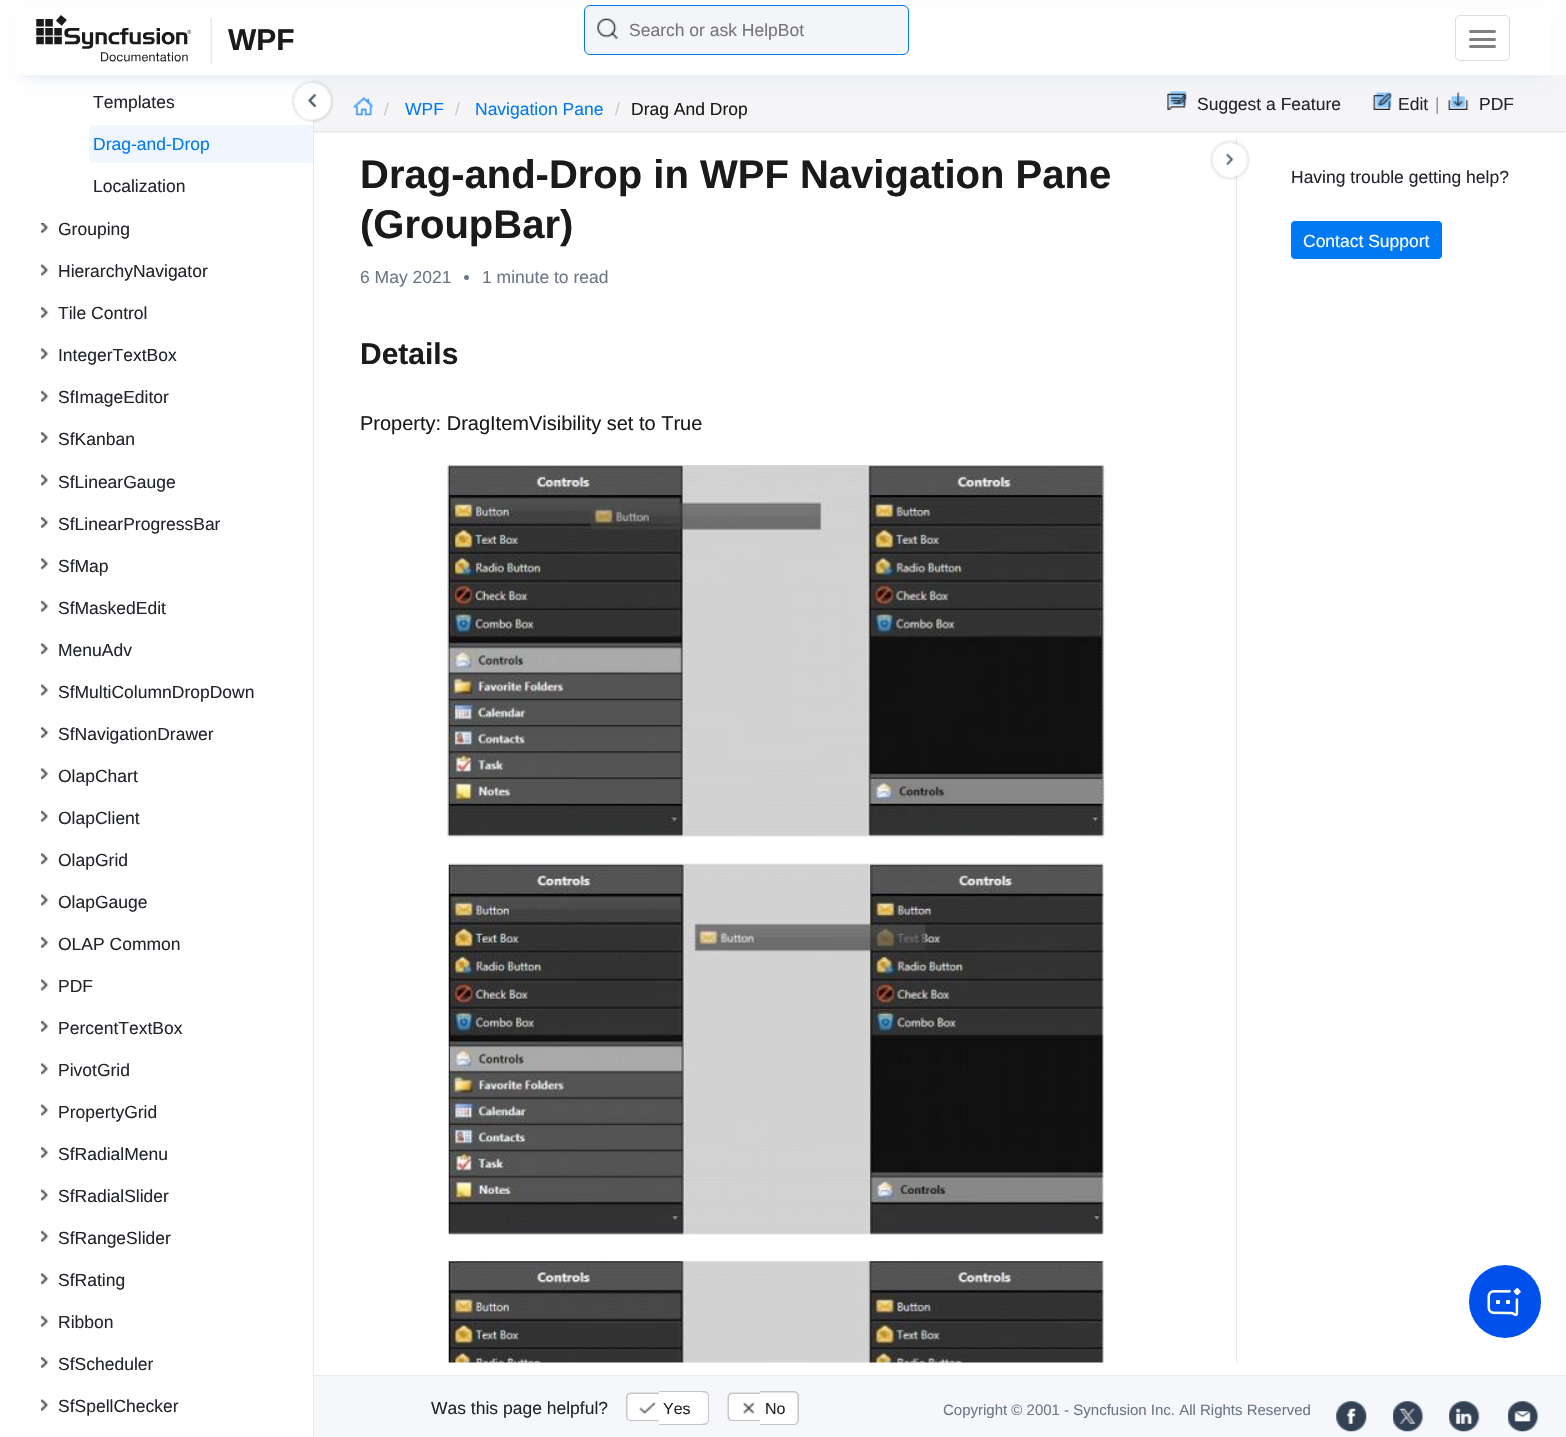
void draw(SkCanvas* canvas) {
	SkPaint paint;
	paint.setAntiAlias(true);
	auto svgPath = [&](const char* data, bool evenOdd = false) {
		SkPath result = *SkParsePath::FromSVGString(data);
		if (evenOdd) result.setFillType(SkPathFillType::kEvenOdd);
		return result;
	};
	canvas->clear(0xffffffff);
	paint.setColor(0xfff5f5f7);
	canvas->drawRect(SkRect::MakeXYWH(314, 75, 1252, 58), paint);
	canvas->drawImageRect(SkImages::DeferredFromEncodedData(SkData::MakeFromFileName("img3.png")), SkRect::MakeXYWH(353, 96, 20, 20), SkSamplingOptions());
	canvas->drawImageRect(SkImages::DeferredFromEncodedData(SkData::MakeFromFileName("img4.png")), SkRect::MakeXYWH(1167, 91, 20, 19), SkSamplingOptions());
	canvas->drawImageRect(SkImages::DeferredFromEncodedData(SkData::MakeFromFileName("img5.png")), SkRect::MakeXYWH(1373, 92, 19, 18), SkSamplingOptions());
	canvas->drawImageRect(SkImages::DeferredFromEncodedData(SkData::MakeFromFileName("img6.png")), SkRect::MakeXYWH(1448, 92, 21, 18), SkSamplingOptions());
	paint.setColor(0xffe7e7e7);
	canvas->drawRect(SkRect::MakeXYWH(313, 75, 1, 1362), paint);
	canvas->drawImageRect(SkImages::DeferredFromEncodedData(SkData::MakeFromFileName("img14.png")), SkRect::MakeXYWH(291, 80, 43, 43), SkSamplingOptions());
	paint.setColor(0xffe2eaf5);
	paint.setMaskFilter(SkMaskFilter::MakeBlur(kNormal_SkBlurStyle, 7));
	canvas->drawRect(SkRect::MakeXYWH(23, 18, 1521, 60), paint);
	paint.setMaskFilter(nullptr);
	paint.setColor(0xffffffff);
	canvas->drawRect(SkRect::MakeXYWH(15, 9, 1536, 66), paint);
	canvas->drawImageRect(SkImages::DeferredFromEncodedData(SkData::MakeFromFileName("img1.png")), SkRect::MakeXYWH(36, 15, 176, 50), SkSamplingOptions());
	SkFont f1(fontMgr->matchFamilyStyle("Liberation Sans", SkFontStyle::Bold()), 30);
	f1.setSubpixel(true);
	paint.setColor(0xff1a1a1a);
	canvas->drawString("WPF", 228, 50, f1, paint);
	paint.setColor(0xfff4f5f8);
	canvas->drawRoundRect(SkRect::MakeXYWH(584, 5, 325, 50), 6, 6, paint);
	canvas->drawImageRect(SkImages::DeferredFromEncodedData(SkData::MakeFromFileName("img2.png")), SkRect::MakeXYWH(597, 18, 21, 21), SkSamplingOptions());
	paint.setStroke(true);
	paint.setStrokeWidth(1);
	paint.setColor(0xff0079f3);
	canvas->drawRoundRect(SkRect::MakeXYWH(584.5, 5.5, 324, 49), 5.5, 5.5, paint);
	SkFont f2(fontMgr->matchFamilyStyle("Liberation Sans", SkFontStyle::Normal()), 17.5);
	f2.setSubpixel(true);
	paint.setStroke(false);
	paint.setColor(0xff757575);
	canvas->drawString("Search or ask HelpBot", 629, 36, f2, paint);
	paint.setStroke(true);
	paint.setColor(0xffdddddd);
	canvas->drawRoundRect(SkRect::MakeXYWH(1455.5, 15.5, 54, 45), 4.5, 4.5, paint);
	paint.setStroke(false);
	paint.setColor(0xff808080);
	canvas->drawRoundRect(SkRect::MakeXYWH(1469, 30, 27, 3), 1.5, 1.5, paint);
	canvas->drawRoundRect(SkRect::MakeXYWH(1469, 38, 27, 3), 1.5, 1.5, paint);
	canvas->drawRoundRect(SkRect::MakeXYWH(1469, 45, 27, 3), 1.5, 1.5, paint);
	paint.setColor(0xffe7e7e7);
	canvas->drawRect(SkRect::MakeXYWH(314, 131, 1252, 1), paint);
	paint.setColor(0xffcccccc);
	canvas->drawString("/", 384, 115, f2, paint);
	paint.setColor(0xff0079f3);
	canvas->drawString("WPF", 405, 115, f2, paint);
	paint.setColor(0xffcccccc);
	canvas->drawString("/", 455, 115, f2, paint);
	paint.setColor(0xff0079f3);
	canvas->drawString("Navigation Pane", 475, 115, f2, paint);
	paint.setColor(0xffcccccc);
	canvas->drawString("/", 615, 115, f2, paint);
	paint.setColor(0xff1a1a1a);
	canvas->drawString("Drag And Drop", 631, 115, f2, paint);
	paint.setColor(0xff22252a);
	canvas->drawString("Suggest a Feature", 1197, 110, f2, paint);
	canvas->drawString("Edit", 1398, 110, f2, paint);
	paint.setColor(0xff979797);
	canvas->drawString("|", 1435, 110, f2, paint);
	paint.setColor(0xff22252a);
	canvas->drawString("PDF", 1479, 110, f2, paint);
	canvas->drawString("Templates", 93, 108, f2, paint);
	paint.setColor(0xffeff6ff);
	canvas->drawPath(svgPath("M94 125H313V163H94C91 163 89 161 89 158V130C89 127 91 125 94 125Z"), paint);
	paint.setColor(0xff0079f3);
	canvas->drawString("Drag-and-Drop", 93, 150, f2, paint);
	paint.setColor(0xff22252a);
	canvas->drawString("Localization", 93, 192, f2, paint);
	canvas->drawImageRect(SkImages::DeferredFromEncodedData(SkData::MakeFromFileName("img7.png")), SkRect::MakeXYWH(41, 223, 8, 10), SkSamplingOptions());
	canvas->drawString("Grouping", 58, 235, f2, paint);
	canvas->drawImageRect(SkImages::DeferredFromEncodedData(SkData::MakeFromFileName("img8.png")), SkRect::MakeXYWH(41, 264, 8, 12), SkSamplingOptions());
	canvas->drawString("HierarchyNavigator", 58, 277, f2, paint);
	canvas->drawImageRect(SkImages::DeferredFromEncodedData(SkData::MakeFromFileName("img9.png")), SkRect::MakeXYWH(41, 307, 8, 11), SkSamplingOptions());
	canvas->drawString("Tile Control", 58, 319, f2, paint);
	canvas->drawImageRect(SkImages::DeferredFromEncodedData(SkData::MakeFromFileName("img10.png")), SkRect::MakeXYWH(41, 348, 8, 12), SkSamplingOptions());
	canvas->drawString("IntegerTextBox", 58, 361, f2, paint);
	canvas->drawImageRect(SkImages::DeferredFromEncodedData(SkData::MakeFromFileName("img11.png")), SkRect::MakeXYWH(41, 390, 8, 12), SkSamplingOptions());
	canvas->drawString("SfImageEditor", 58, 403, f2, paint);
	canvas->drawImageRect(SkImages::DeferredFromEncodedData(SkData::MakeFromFileName("img9.png")), SkRect::MakeXYWH(41, 432, 8, 11), SkSamplingOptions());
	canvas->drawString("SfKanban", 58, 445, f2, paint);
	canvas->drawImageRect(SkImages::DeferredFromEncodedData(SkData::MakeFromFileName("img8.png")), SkRect::MakeXYWH(41, 474, 8, 12), SkSamplingOptions());
	canvas->drawString("SfLinearGauge", 58, 488, f2, paint);
	canvas->drawImageRect(SkImages::DeferredFromEncodedData(SkData::MakeFromFileName("img9.png")), SkRect::MakeXYWH(41, 517, 8, 11), SkSamplingOptions());
	canvas->drawString("SfLinearProgressBar", 58, 530, f2, paint);
	canvas->drawImageRect(SkImages::DeferredFromEncodedData(SkData::MakeFromFileName("img10.png")), SkRect::MakeXYWH(41, 558, 8, 12), SkSamplingOptions());
	canvas->drawString("SfMap", 58, 572, f2, paint);
	canvas->drawImageRect(SkImages::DeferredFromEncodedData(SkData::MakeFromFileName("img11.png")), SkRect::MakeXYWH(41, 600, 8, 12), SkSamplingOptions());
	canvas->drawString("SfMaskedEdit", 58, 614, f2, paint);
	canvas->drawImageRect(SkImages::DeferredFromEncodedData(SkData::MakeFromFileName("img10.png")), SkRect::MakeXYWH(41, 643, 8, 12), SkSamplingOptions());
	canvas->drawString("MenuAdv", 58, 656, f2, paint);
	canvas->drawImageRect(SkImages::DeferredFromEncodedData(SkData::MakeFromFileName("img8.png")), SkRect::MakeXYWH(41, 684, 8, 12), SkSamplingOptions());
	canvas->drawString("SfMultiColumnDropDown", 58, 698, f2, paint);
	canvas->drawImageRect(SkImages::DeferredFromEncodedData(SkData::MakeFromFileName("img12.png")), SkRect::MakeXYWH(41, 727, 8, 11), SkSamplingOptions());
	canvas->drawString("SfNavigationDrawer", 58, 740, f2, paint);
	canvas->drawImageRect(SkImages::DeferredFromEncodedData(SkData::MakeFromFileName("img10.png")), SkRect::MakeXYWH(41, 768, 8, 12), SkSamplingOptions());
	canvas->drawString("OlapChart", 58, 782, f2, paint);
	canvas->drawImageRect(SkImages::DeferredFromEncodedData(SkData::MakeFromFileName("img11.png")), SkRect::MakeXYWH(41, 810, 8, 12), SkSamplingOptions());
	canvas->drawString("OlapClient", 58, 824, f2, paint);
	canvas->drawImageRect(SkImages::DeferredFromEncodedData(SkData::MakeFromFileName("img10.png")), SkRect::MakeXYWH(41, 853, 8, 12), SkSamplingOptions());
	canvas->drawString("OlapGrid", 58, 866, f2, paint);
	canvas->drawImageRect(SkImages::DeferredFromEncodedData(SkData::MakeFromFileName("img8.png")), SkRect::MakeXYWH(41, 894, 8, 12), SkSamplingOptions());
	canvas->drawString("OlapGauge", 58, 908, f2, paint);
	canvas->drawImageRect(SkImages::DeferredFromEncodedData(SkData::MakeFromFileName("img9.png")), SkRect::MakeXYWH(41, 937, 8, 11), SkSamplingOptions());
	canvas->drawString("OLAP Common", 58, 950, f2, paint);
	canvas->drawImageRect(SkImages::DeferredFromEncodedData(SkData::MakeFromFileName("img8.png")), SkRect::MakeXYWH(41, 979, 8, 12), SkSamplingOptions());
	canvas->drawString("PDF", 58, 992, f2, paint);
	canvas->drawImageRect(SkImages::DeferredFromEncodedData(SkData::MakeFromFileName("img11.png")), SkRect::MakeXYWH(41, 1020, 8, 12), SkSamplingOptions());
	canvas->drawString("PercentTextBox", 58, 1034, f2, paint);
	canvas->drawImageRect(SkImages::DeferredFromEncodedData(SkData::MakeFromFileName("img10.png")), SkRect::MakeXYWH(41, 1063, 8, 12), SkSamplingOptions());
	canvas->drawString("PivotGrid", 58, 1076, f2, paint);
	canvas->drawImageRect(SkImages::DeferredFromEncodedData(SkData::MakeFromFileName("img8.png")), SkRect::MakeXYWH(41, 1104, 8, 12), SkSamplingOptions());
	canvas->drawString("PropertyGrid", 58, 1118, f2, paint);
	canvas->drawImageRect(SkImages::DeferredFromEncodedData(SkData::MakeFromFileName("img9.png")), SkRect::MakeXYWH(41, 1147, 8, 11), SkSamplingOptions());
	canvas->drawString("SfRadialMenu", 58, 1160, f2, paint);
	canvas->drawImageRect(SkImages::DeferredFromEncodedData(SkData::MakeFromFileName("img8.png")), SkRect::MakeXYWH(41, 1189, 8, 12), SkSamplingOptions());
	canvas->drawString("SfRadialSlider", 58, 1202, f2, paint);
	canvas->drawImageRect(SkImages::DeferredFromEncodedData(SkData::MakeFromFileName("img11.png")), SkRect::MakeXYWH(41, 1230, 8, 12), SkSamplingOptions());
	canvas->drawString("SfRangeSlider", 58, 1244, f2, paint);
	canvas->drawImageRect(SkImages::DeferredFromEncodedData(SkData::MakeFromFileName("img10.png")), SkRect::MakeXYWH(41, 1273, 8, 12), SkSamplingOptions());
	canvas->drawString("SfRating", 58, 1286, f2, paint);
	canvas->drawImageRect(SkImages::DeferredFromEncodedData(SkData::MakeFromFileName("img11.png")), SkRect::MakeXYWH(41, 1315, 8, 12), SkSamplingOptions());
	canvas->drawString("Ribbon", 58, 1328, f2, paint);
	canvas->drawImageRect(SkImages::DeferredFromEncodedData(SkData::MakeFromFileName("img9.png")), SkRect::MakeXYWH(41, 1357, 8, 11), SkSamplingOptions());
	canvas->drawString("SfScheduler", 58, 1370, f2, paint);
	canvas->drawImageRect(SkImages::DeferredFromEncodedData(SkData::MakeFromFileName("img13.png")), SkRect::MakeXYWH(41, 1399, 8, 12), SkSamplingOptions());
	canvas->drawString("SfSpellChecker", 58, 1412, f2, paint);
	paint.setColor(0xffe7e7e7);
	canvas->drawRect(SkRect::MakeXYWH(1236, 138, 1, 1225), paint);
	SkFont f3(fontMgr->matchFamilyStyle("Liberation Sans", SkFontStyle::Bold()), 40);
	f3.setSubpixel(true);
	paint.setColor(0xff1a1a1a);
	canvas->drawString("Drag-and-Drop in WPF Navigation Pane", 360, 188, f3, paint);
	canvas->drawString("(GroupBar)", 360, 238, f3, paint);
	paint.setColor(0xff6c7786);
	canvas->drawString("6 May 2021", 360, 283, f2, paint);
	canvas->drawCircle(466.5, 277.5, 2.5, paint);
	canvas->drawString("1 minute to read", 482, 283, f2, paint);
	paint.setColor(0xff1a1a1a);
	canvas->drawString("Details", 360, 364, f1, paint);
	SkFont f4(fontMgr->matchFamilyStyle("Liberation Sans", SkFontStyle::Normal()), 20);
	f4.setSubpixel(true);
	canvas->drawString("Property: DragItemVisibility set to True", 360, 430, f4, paint);
	canvas->drawImageRect(SkImages::DeferredFromEncodedData(SkData::MakeFromFileName("img15.png")), SkRect::MakeXYWH(447, 465, 658, 373), SkSamplingOptions());
	canvas->drawImageRect(SkImages::DeferredFromEncodedData(SkData::MakeFromFileName("img16.png")), SkRect::MakeXYWH(448, 863, 656, 372), SkSamplingOptions());
	canvas->drawImageRect(SkImages::DeferredFromEncodedData(SkData::MakeFromFileName("img17.png")), SkRect::MakeXYWH(448, 1261, 656, 102), SkSamplingOptions());
	canvas->drawImageRect(SkImages::DeferredFromEncodedData(SkData::MakeFromFileName("img18.png")), SkRect::MakeXYWH(1210, 140, 40, 40), SkSamplingOptions());
	paint.setColor(0xff22252a);
	canvas->drawString("Having trouble getting help?", 1291, 183, f2, paint);
	paint.setColor(0xff0079f3);
	canvas->drawRoundRect(SkRect::MakeXYWH(1290.5, 220.5, 152, 39), 4.5, 4.5, paint);
	paint.setStroke(true);
	paint.setColor(0xffffffff);
	canvas->drawRoundRect(SkRect::MakeXYWH(1290.5, 220.5, 152, 39), 4.5, 4.5, paint);
	paint.setStroke(false);
	canvas->drawString("Contact Support", 1303, 247, f2, paint);
	paint.setColor(0xff0050eb);
	canvas->drawRoundRect(SkRect::MakeXYWH(1469, 1265, 72, 73), 36, 36, paint);
	canvas->drawImageRect(SkImages::DeferredFromEncodedData(SkData::MakeFromFileName("img19.png")), SkRect::MakeXYWH(1487, 1288, 34, 29), SkSamplingOptions());
	paint.setColor(0xfff5f7fa);
	canvas->drawRect(SkRect::MakeXYWH(314, 1376, 1252, 61), paint);
	paint.setColor(0xffeaeaea);
	canvas->drawRect(SkRect::MakeXYWH(314, 1375, 1252, 1), paint);
	paint.setColor(0xff22252a);
	canvas->drawString("Was this page helpful?", 431, 1414, f2, paint);
	paint.setColor(0xffffffff);
	canvas->drawPath(svgPath("M631 1393H659V1421H631C628 1421 626 1419 626 1416V1398C626 1395 628 1393 631 1393Z"), paint);
	paint.setColor(0xffc5c5c5);
	canvas->drawPath(svgPath("M631 1392.5H659V1421H631C628.5 1421 626 1419 626 1416V1397.5C626 1394.5 628.5 1392.5 631 1392.5ZM631 1394H659V1420H631C629 1420 627.5 1418.5 627.5 1416V1397.5C627.5 1395.5 629 1394 631 1394Z", true), paint);
	paint.setColor(0xffffffff);
	canvas->drawPath(svgPath("M659 1391H704C707 1391 709 1393 709 1396V1420C709 1423 707 1425 704 1425H659Z"), paint);
	paint.setColor(0xffc5c5c5);
	canvas->drawPath(svgPath("M659 1391H704C707 1391 709 1393 709 1396V1420C709 1423 707 1425 704 1425H659ZM659 1392H696C711 1392 708 1393 708 1408C708 1423 711 1424 696 1424H659Z", true), paint);
	canvas->drawImageRect(SkImages::DeferredFromEncodedData(SkData::MakeFromFileName("img20.png")), SkRect::MakeXYWH(639, 1402, 17, 12), SkSamplingOptions());
	SkFont f5(fontMgr->matchFamilyStyle("Liberation Sans", SkFontStyle::Normal()), 16);
	f5.setSubpixel(true);
	paint.setColor(0xff22252a);
	canvas->drawString("Yes", 663, 1414, f5, paint);
	paint.setColor(0xffffffff);
	canvas->drawPath(svgPath("M733 1393H760V1421H733C730 1421 728 1419 728 1416V1398C728 1395 730 1393 733 1393Z"), paint);
	paint.setColor(0xffc5c5c5);
	canvas->drawPath(svgPath("M732.5 1392.5H760V1421H732.5C729.5 1421 727.5 1419 727.5 1416V1397.5C727.5 1394.5 729.5 1392.5 732.5 1392.5ZM732.5 1394H760V1420H732.5C730.5 1420 729 1418.5 729 1416V1397.5C729 1395.5 730.5 1394 732.5 1394Z", true), paint);
	paint.setColor(0xffffffff);
	canvas->drawPath(svgPath("M760 1391H794C797 1391 799 1393 799 1396V1420C799 1423 797 1425 794 1425H760Z"), paint);
	paint.setColor(0xffc5c5c5);
	canvas->drawPath(svgPath("M760 1391H794C796.5 1391 799 1393.5 799 1396V1420C799 1423 796.5 1425 794 1425H760ZM760 1392.5H794C796 1392.5 797.5 1394 797.5 1396V1420C797.5 1422 796 1424 794 1424H760Z", true), paint);
	canvas->drawImageRect(SkImages::DeferredFromEncodedData(SkData::MakeFromFileName("img21.png")), SkRect::MakeXYWH(743, 1402, 12, 12), SkSamplingOptions());
	paint.setColor(0xff22252a);
	canvas->drawString("No", 765, 1414, f5, paint);
	SkFont f6(fontMgr->matchFamilyStyle("Liberation Sans", SkFontStyle::Normal()), 15);
	f6.setSubpixel(true);
	paint.setColor(0xff6c7786);
	canvas->drawString("Copyright © 2001 - Syncfusion Inc. All Rights Reserved", 943, 1415, f6, paint);
	canvas->drawImageRect(SkImages::DeferredFromEncodedData(SkData::MakeFromFileName("img22.png")), SkRect::MakeXYWH(1336, 1401, 31, 31), SkSamplingOptions());
	canvas->drawImageRect(SkImages::DeferredFromEncodedData(SkData::MakeFromFileName("img23.png")), SkRect::MakeXYWH(1393, 1401, 31, 31), SkSamplingOptions());
	canvas->drawImageRect(SkImages::DeferredFromEncodedData(SkData::MakeFromFileName("img24.png")), SkRect::MakeXYWH(1449, 1401, 31, 31), SkSamplingOptions());
	canvas->drawImageRect(SkImages::DeferredFromEncodedData(SkData::MakeFromFileName("img25.png")), SkRect::MakeXYWH(1508, 1401, 31, 31), SkSamplingOptions());
}
